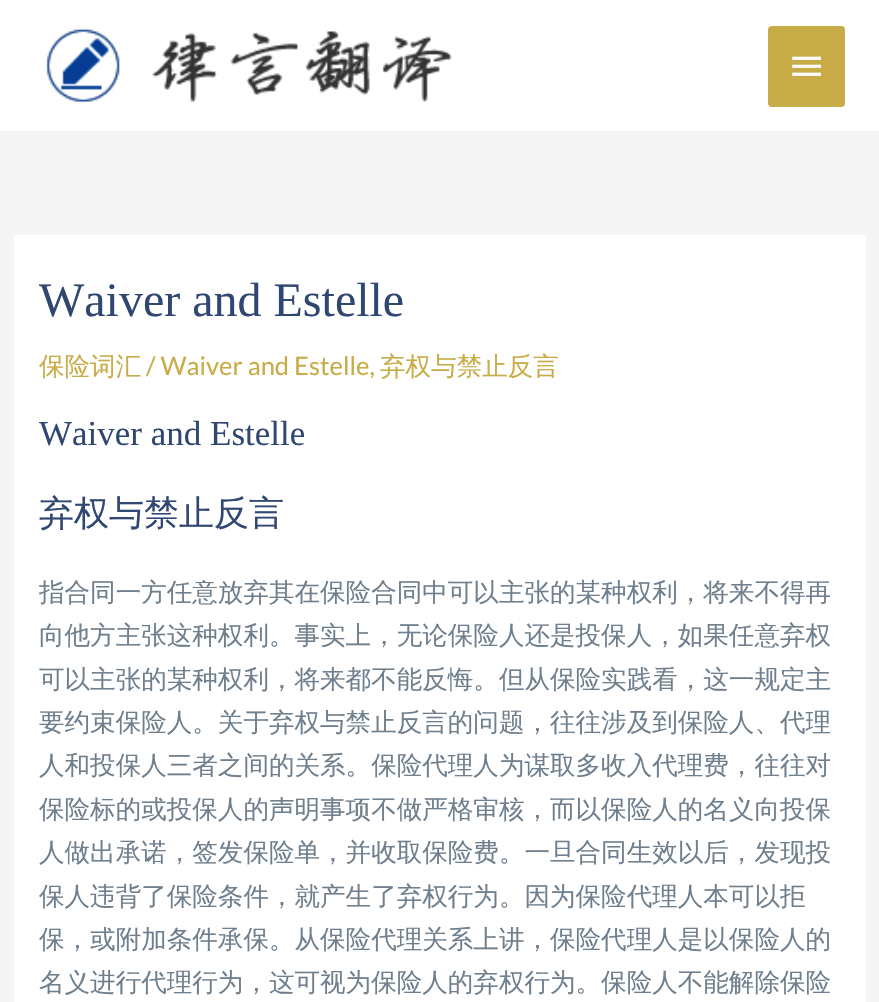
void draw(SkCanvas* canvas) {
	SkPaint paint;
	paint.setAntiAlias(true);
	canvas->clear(0xfff5f5f5);
	paint.setColor(0xffffffff);
	canvas->drawRect(SkRect::MakeXYWH(0, 0, 879, 131), paint);
	canvas->drawImageRect(SkImages::DeferredFromEncodedData(SkData::MakeFromFileName("img1.png")), SkRect::MakeXYWH(46, 29, 406, 73), SkSamplingOptions());
	paint.setColor(0xffc8ac48);
	canvas->drawRoundRect(SkRect::MakeXYWH(768, 26, 77, 81), 4, 4, paint);
	canvas->drawImageRect(SkImages::DeferredFromEncodedData(SkData::MakeFromFileName("img2.png")), SkRect::MakeXYWH(792, 56, 29, 20), SkSamplingOptions());
	paint.setColor(0xffffffff);
	canvas->drawRect(SkRect::MakeXYWH(14, 235, 852, 767), paint);
	SkFont f1(fontMgr->matchFamilyStyle("Liberation Serif", SkFontStyle::Normal()), 48);
	f1.setSubpixel(true);
	paint.setColor(0xff304771);
	canvas->drawString("Waiver and Estelle", 39, 316, f1, paint);
	SkFont f2(fontMgr->matchFamilyStyle("WenQuanYi Zen Hei", SkFontStyle(500, SkFontStyle::kNormal_Width, SkFontStyle::kUpright_Slant)), 25.55);
	f2.setSubpixel(true);
	paint.setColor(0xffc8ac48);
	canvas->drawString("保险词汇", 39, 375, f2, paint);
	SkFont f3(fontMgr->matchFamilyStyle("Lato", SkFontStyle::Normal()), 25.55);
	f3.setSubpixel(true);
	canvas->drawString("/ Waiver and Estelle,", 146, 375, f3, paint);
	canvas->drawString("弃权与禁止反言", 380, 375, f2, paint);
	SkFont f4(fontMgr->matchFamilyStyle("Liberation Serif", SkFontStyle::Normal()), 35);
	f4.setSubpixel(true);
	paint.setColor(0xff304771);
	canvas->drawString("Waiver and Estelle", 39, 445, f4, paint);
	SkFont f5(fontMgr->matchFamilyStyle("WenQuanYi Zen Hei", SkFontStyle(500, SkFontStyle::kNormal_Width, SkFontStyle::kUpright_Slant)), 35);
	f5.setSubpixel(true);
	canvas->drawString("弃权与禁止反言", 39, 525, f5, paint);
	paint.setColor(0xff6f7f8e);
	canvas->drawString("指合同一方任意放弃其在保险合同中可以主张的某种权利，将来不得再", 39, 601, f2, paint);
	canvas->drawString("向他方主张这种权利。事实上，无论保险人还是投保人，如果任意弃权", 39, 644, f2, paint);
	canvas->drawString("可以主张的某种权利，将来都不能反悔。但从保险实践看，这一规定主", 39, 688, f2, paint);
	canvas->drawString("要约束保险人。关于弃权与禁止反言的问题，往往涉及到保险人、代理", 39, 731, f2, paint);
	canvas->drawString("人和投保人三者之间的关系。保险代理人为谋取多收入代理费，往往对", 39, 774, f2, paint);
	canvas->drawString("保险标的或投保人的声明事项不做严格审核，而以保险人的名义向投保", 39, 818, f2, paint);
	canvas->drawString("人做出承诺，签发保险单，并收取保险费。一旦合同生效以后，发现投", 39, 861, f2, paint);
	canvas->drawString("保人违背了保险条件，就产生了弃权行为。因为保险代理人本可以拒", 39, 905, f2, paint);
	canvas->drawString("保，或附加条件承保。从保险代理关系上讲，保险代理人是以保险人的", 39, 948, f2, paint);
	canvas->drawString("名义进行代理行为，这可视为保险人的弃权行为。保险人不能解除保险", 39, 991, f2, paint);
}
